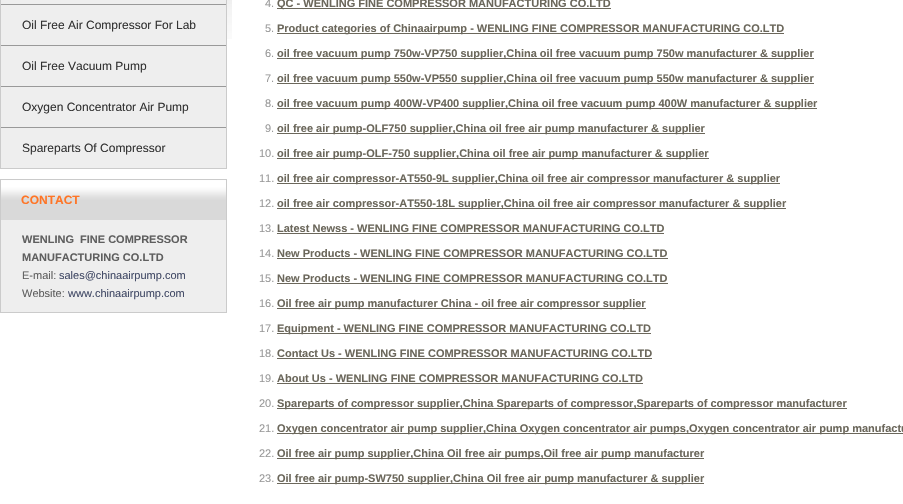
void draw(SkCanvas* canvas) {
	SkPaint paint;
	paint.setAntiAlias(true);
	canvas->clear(0xffffffff);
	canvas->drawImageRect(SkImages::DeferredFromEncodedData(SkData::MakeFromFileName("img1.png")), SkRect::MakeXYWH(227, 0, 5, 39), SkSamplingOptions());
	paint.setColor(0xffeeeeee);
	canvas->drawRect(SkRect::MakeXYWH(0.5, -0.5, 226, 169), paint);
	paint.setStroke(true);
	paint.setStrokeWidth(1);
	paint.setColor(0xffcbcbcb);
	canvas->drawRect(SkRect::MakeXYWH(0.5, -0.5, 226, 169), paint);
	paint.setStroke(false);
	paint.setColor(0xff999999);
	canvas->drawRect(SkRect::MakeXYWH(1, 4, 225, 1), paint);
	SkFont f1(fontMgr->matchFamilyStyle("Liberation Sans", SkFontStyle::Normal()), 12);
	f1.setSubpixel(true);
	paint.setColor(0xff333333);
	canvas->drawString("Oil Free Air Compressor For Lab", 22, 29, f1, paint);
	paint.setColor(0xff999999);
	canvas->drawRect(SkRect::MakeXYWH(1, 45, 225, 1), paint);
	paint.setColor(0xff333333);
	canvas->drawString("Oil Free Vacuum Pump", 22, 70, f1, paint);
	paint.setColor(0xff999999);
	canvas->drawRect(SkRect::MakeXYWH(1, 86, 225, 1), paint);
	paint.setColor(0xff333333);
	canvas->drawString("Oxygen Concentrator Air Pump", 22, 111, f1, paint);
	paint.setColor(0xff999999);
	canvas->drawRect(SkRect::MakeXYWH(1, 127, 225, 1), paint);
	paint.setColor(0xff333333);
	canvas->drawString("Spareparts Of Compressor", 22, 152, f1, paint);
	paint.setColor(0xffeeeeee);
	canvas->drawRect(SkRect::MakeXYWH(1, 220, 225, 92), paint);
	paint.setStroke(true);
	paint.setColor(0xffcbcbcb);
	canvas->drawRect(SkRect::MakeXYWH(0.5, 179.5, 226, 133), paint);
	canvas->drawImageRect(SkImages::DeferredFromEncodedData(SkData::MakeFromFileName("img2.png")), SkRect::MakeXYWH(1, 180, 225, 40), SkSamplingOptions());
	SkFont f2(fontMgr->matchFamilyStyle("Liberation Sans", SkFontStyle::Bold()), 12);
	f2.setSubpixel(true);
	paint.setStroke(false);
	paint.setColor(0xffff7526);
	canvas->drawString("CONTACT", 21, 204, f2, paint);
	SkFont f3(fontMgr->matchFamilyStyle("Liberation Sans", SkFontStyle::Bold()), 11);
	f3.setSubpixel(true);
	paint.setColor(0xff5f5f5f);
	canvas->drawString("WENLING  FINE COMPRESSOR", 22, 243, f3, paint);
	canvas->drawString("MANUFACTURING CO.LTD", 22, 261, f3, paint);
	SkFont f4(fontMgr->matchFamilyStyle("Liberation Sans", SkFontStyle::Normal()), 11);
	f4.setSubpixel(true);
	canvas->drawString("E-mail:", 22, 279, f4, paint);
	paint.setColor(0xff424a66);
	canvas->drawString("sales@chinaairpump.com", 59, 279, f4, paint);
	paint.setColor(0xff5f5f5f);
	canvas->drawString("Website:", 22, 297, f4, paint);
	paint.setColor(0xff424a66);
	canvas->drawString("www.chinaairpump.com", 68, 297, f4, paint);
	paint.setColor(0xff999999);
	canvas->drawString("4.", 265, 7, f4, paint);
	paint.setColor(0xff6b675b);
	canvas->drawRect(SkRect::MakeXYWH(277, 8, 334, 1), paint);
	canvas->drawString("QC - WENLING FINE COMPRESSOR MANUFACTURING CO.LTD", 277, 7, f3, paint);
	paint.setColor(0xff999999);
	canvas->drawString("5.", 265, 32, f4, paint);
	paint.setColor(0xff6b675b);
	canvas->drawRect(SkRect::MakeXYWH(277, 33, 507, 1), paint);
	canvas->drawString("Product categories of Chinaairpump - WENLING FINE COMPRESSOR MANUFACTURING CO.LTD", 277, 32, f3, paint);
	paint.setColor(0xff999999);
	canvas->drawString("6.", 265, 57, f4, paint);
	paint.setColor(0xff6b675b);
	canvas->drawRect(SkRect::MakeXYWH(277, 58, 537, 1), paint);
	canvas->drawString("oil free vacuum pump 750w-VP750 supplier,China oil free vacuum pump 750w manufacturer & supplier", 277, 57, f3, paint);
	paint.setColor(0xff999999);
	canvas->drawString("7.", 265, 82, f4, paint);
	paint.setColor(0xff6b675b);
	canvas->drawRect(SkRect::MakeXYWH(277, 83, 537, 1), paint);
	canvas->drawString("oil free vacuum pump 550w-VP550 supplier,China oil free vacuum pump 550w manufacturer & supplier", 277, 82, f3, paint);
	paint.setColor(0xff999999);
	canvas->drawString("8.", 265, 107, f4, paint);
	paint.setColor(0xff6b675b);
	canvas->drawRect(SkRect::MakeXYWH(277, 108, 540, 1), paint);
	canvas->drawString("oil free vacuum pump 400W-VP400 supplier,China oil free vacuum pump 400W manufacturer & supplier", 277, 107, f3, paint);
	paint.setColor(0xff999999);
	canvas->drawString("9.", 265, 132, f4, paint);
	paint.setColor(0xff6b675b);
	canvas->drawRect(SkRect::MakeXYWH(277, 133, 428, 1), paint);
	canvas->drawString("oil free air pump-OLF750 supplier,China oil free air pump manufacturer & supplier", 277, 132, f3, paint);
	paint.setColor(0xff999999);
	canvas->drawString("10.", 259, 157, f4, paint);
	paint.setColor(0xff6b675b);
	canvas->drawRect(SkRect::MakeXYWH(277, 158, 432, 1), paint);
	canvas->drawString("oil free air pump-OLF-750 supplier,China oil free air pump manufacturer & supplier", 277, 157, f3, paint);
	paint.setColor(0xff999999);
	canvas->drawString("11.", 259, 182, f4, paint);
	paint.setColor(0xff6b675b);
	canvas->drawRect(SkRect::MakeXYWH(277, 183, 503, 1), paint);
	canvas->drawString("oil free air compressor-AT550-9L supplier,China oil free air compressor manufacturer & supplier", 277, 182, f3, paint);
	paint.setColor(0xff999999);
	canvas->drawString("12.", 259, 207, f4, paint);
	paint.setColor(0xff6b675b);
	canvas->drawRect(SkRect::MakeXYWH(277, 208, 509, 1), paint);
	canvas->drawString("oil free air compressor-AT550-18L supplier,China oil free air compressor manufacturer & supplier", 277, 207, f3, paint);
	paint.setColor(0xff999999);
	canvas->drawString("13.", 259, 232, f4, paint);
	paint.setColor(0xff6b675b);
	canvas->drawString("Latest Newss - WENLING FINE COMPRESSOR MANUFACTURING CO.LTD", 277, 232, f3, paint);
	canvas->drawRect(SkRect::MakeXYWH(277, 233, 387, 1), paint);
	paint.setColor(0xff999999);
	canvas->drawString("14.", 259, 257, f4, paint);
	paint.setColor(0xff6b675b);
	canvas->drawString("New Products - WENLING FINE COMPRESSOR MANUFACTURING CO.LTD", 277, 257, f3, paint);
	canvas->drawRect(SkRect::MakeXYWH(277, 258, 391, 1), paint);
	paint.setColor(0xff999999);
	canvas->drawString("15.", 259, 282, f4, paint);
	paint.setColor(0xff6b675b);
	canvas->drawString("New Products - WENLING FINE COMPRESSOR MANUFACTURING CO.LTD", 277, 282, f3, paint);
	canvas->drawRect(SkRect::MakeXYWH(277, 283, 391, 1), paint);
	paint.setColor(0xff999999);
	canvas->drawString("16.", 259, 307, f4, paint);
	paint.setColor(0xff6b675b);
	canvas->drawRect(SkRect::MakeXYWH(277, 308, 369, 1), paint);
	canvas->drawString("Oil free air pump manufacturer China - oil free air compressor supplier", 277, 307, f3, paint);
	paint.setColor(0xff999999);
	canvas->drawString("17.", 259, 332, f4, paint);
	paint.setColor(0xff6b675b);
	canvas->drawRect(SkRect::MakeXYWH(277, 333, 374, 1), paint);
	canvas->drawString("Equipment - WENLING FINE COMPRESSOR MANUFACTURING CO.LTD", 277, 332, f3, paint);
	paint.setColor(0xff999999);
	canvas->drawString("18.", 259, 357, f4, paint);
	paint.setColor(0xff6b675b);
	canvas->drawString("Contact Us - WENLING FINE COMPRESSOR MANUFACTURING CO.LTD", 277, 357, f3, paint);
	canvas->drawRect(SkRect::MakeXYWH(277, 358, 375, 1), paint);
	paint.setColor(0xff999999);
	canvas->drawString("19.", 259, 382, f4, paint);
	paint.setColor(0xff6b675b);
	canvas->drawString("About Us - WENLING FINE COMPRESSOR MANUFACTURING CO.LTD", 277, 382, f3, paint);
	canvas->drawRect(SkRect::MakeXYWH(277, 383, 366, 1), paint);
	paint.setColor(0xff999999);
	canvas->drawString("20.", 259, 407, f4, paint);
	paint.setColor(0xff6b675b);
	canvas->drawRect(SkRect::MakeXYWH(277, 408, 570, 1), paint);
	canvas->drawString("Spareparts of compressor supplier,China Spareparts of compressor,Spareparts of compressor manufacturer", 277, 407, f3, paint);
	paint.setColor(0xff999999);
	canvas->drawString("21.", 259, 432, f4, paint);
	paint.setColor(0xff6b675b);
	canvas->drawRect(SkRect::MakeXYWH(277, 433, 626, 1), paint);
	canvas->drawString("Oxygen concentrator air pump supplier,China Oxygen concentrator air pumps,Oxygen concentrator air pump manufactu", 277, 432, f3, paint);
	paint.setColor(0xff999999);
	canvas->drawString("22.", 259, 457, f4, paint);
	paint.setColor(0xff6b675b);
	canvas->drawRect(SkRect::MakeXYWH(277, 458, 427, 1), paint);
	canvas->drawString("Oil free air pump supplier,China Oil free air pumps,Oil free air pump manufacturer", 277, 457, f3, paint);
	paint.setColor(0xff999999);
	canvas->drawString("23.", 259, 482, f4, paint);
	paint.setColor(0xff6b675b);
	canvas->drawRect(SkRect::MakeXYWH(277, 483, 427, 1), paint);
	canvas->drawString("Oil free air pump-SW750 supplier,China Oil free air pump manufacturer & supplier", 277, 482, f3, paint);
}
